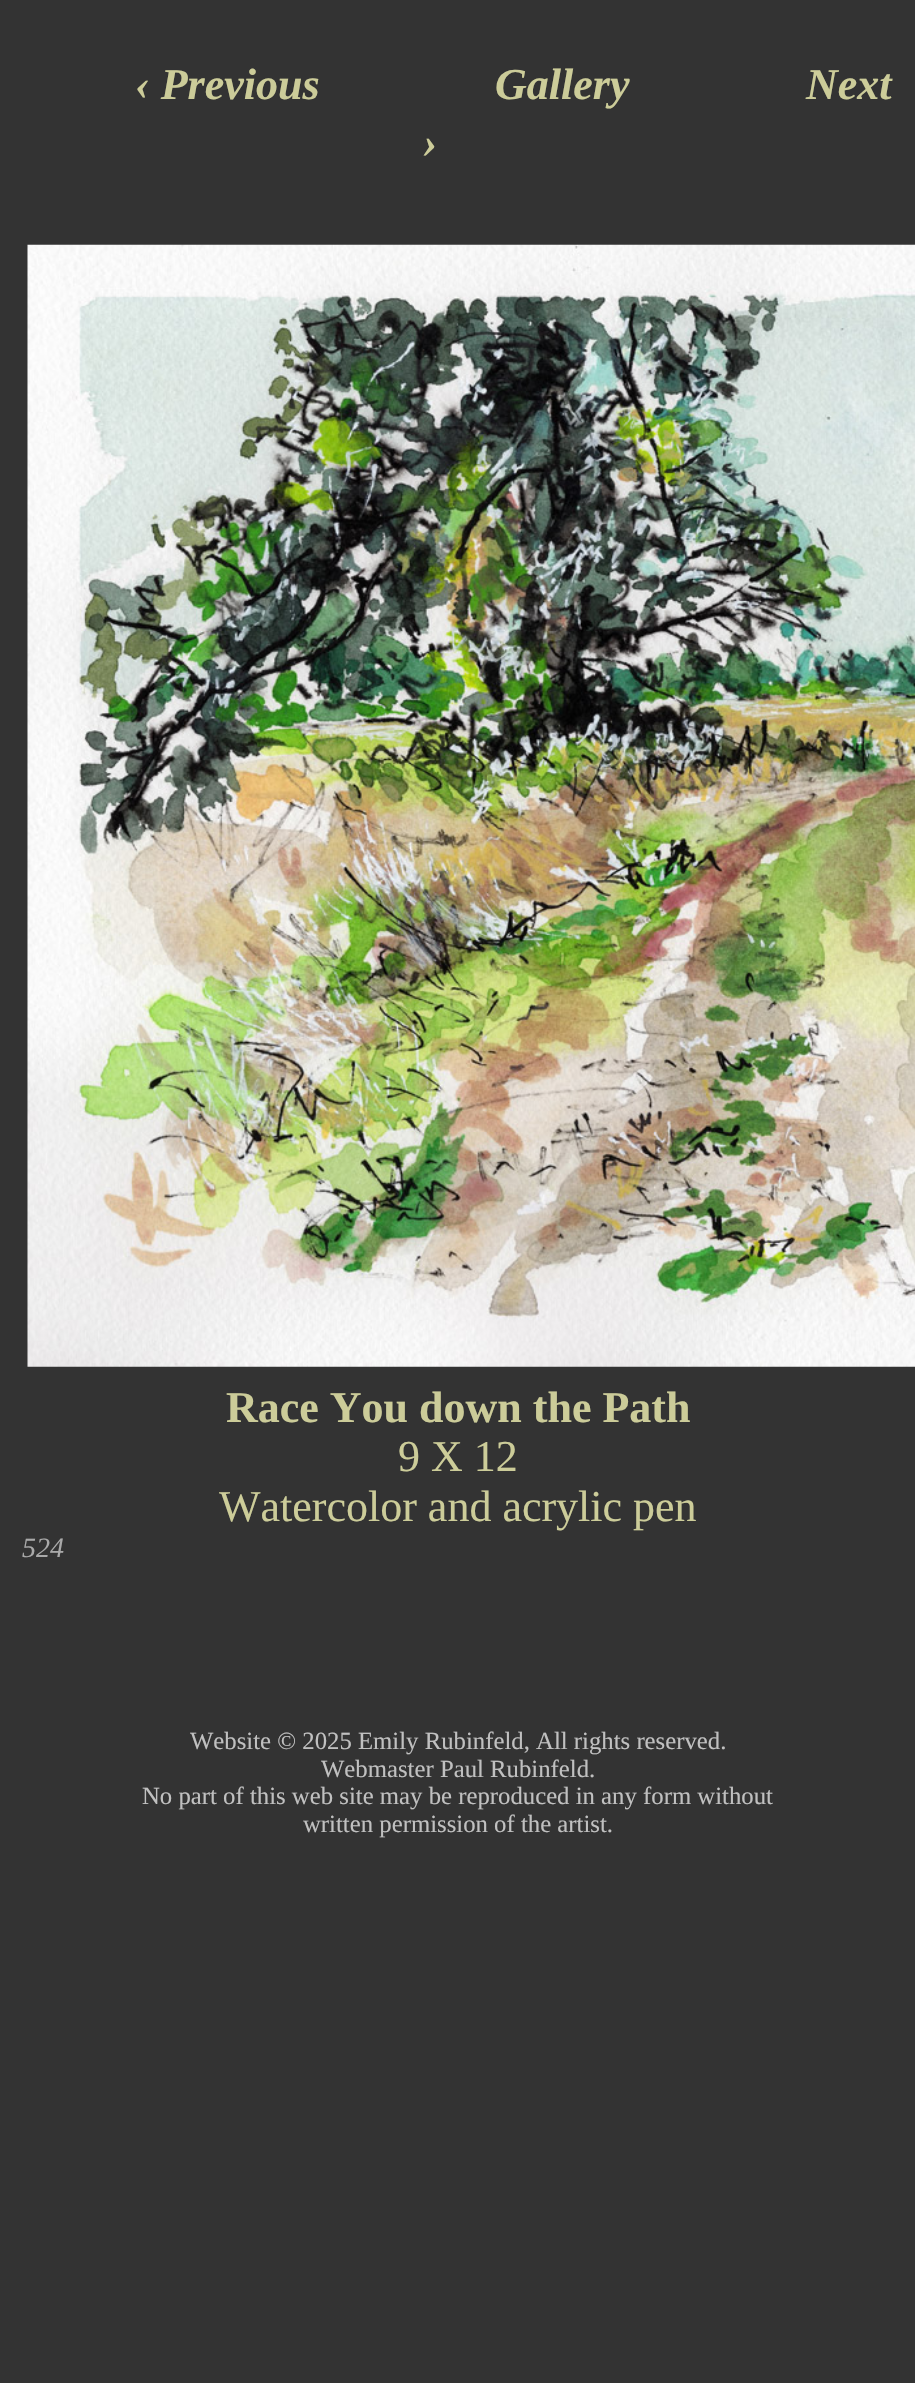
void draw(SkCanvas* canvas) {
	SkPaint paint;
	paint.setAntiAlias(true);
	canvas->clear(0xff333333);
	SkFont f1(fontMgr->matchFamilyStyle("Liberation Serif", SkFontStyle::BoldItalic()), 44);
	f1.setSubpixel(true);
	paint.setColor(0xffcccc99);
	canvas->drawString("‹ Previous", 135, 99, f1, paint);
	canvas->drawString("Gallery", 495, 99, f1, paint);
	canvas->drawString("Next", 806, 99, f1, paint);
	canvas->drawString("›", 423, 157, f1, paint);
	canvas->drawImageRect(SkImages::DeferredFromEncodedData(SkData::MakeFromFileName("img1.png")), SkRect::MakeXYWH(27, 244, 888, 1123), SkSamplingOptions());
	SkFont f2(fontMgr->matchFamilyStyle("Liberation Serif", SkFontStyle::Bold()), 44);
	f2.setSubpixel(true);
	canvas->drawString("Race You down the Path", 226, 1422, f2, paint);
	SkFont f3(fontMgr->matchFamilyStyle("Liberation Serif", SkFontStyle::Normal()), 44);
	f3.setSubpixel(true);
	canvas->drawString("9 X 12", 398, 1471, f3, paint);
	canvas->drawString("Watercolor and acrylic pen", 219, 1521, f3, paint);
	SkFont f4(fontMgr->matchFamilyStyle("Liberation Serif", SkFontStyle::Italic()), 28);
	f4.setSubpixel(true);
	paint.setColor(0xffa9a9a9);
	canvas->drawString("524", 22, 1557, f4, paint);
	SkFont f5(fontMgr->matchFamilyStyle("Liberation Serif", SkFontStyle::Normal()), 24.75);
	f5.setSubpixel(true);
	paint.setColor(0xffc0c0c0);
	canvas->drawString("Website © 2025 Emily Rubinfeld, All rights reserved.", 190, 1749, f5, paint);
	canvas->drawString("Webmaster Paul Rubinfeld.", 321, 1777, f5, paint);
	canvas->drawString("No part of this web site may be reproduced in any form without", 142, 1804, f5, paint);
	canvas->drawString("written permission of the artist.", 303, 1832, f5, paint);
}
